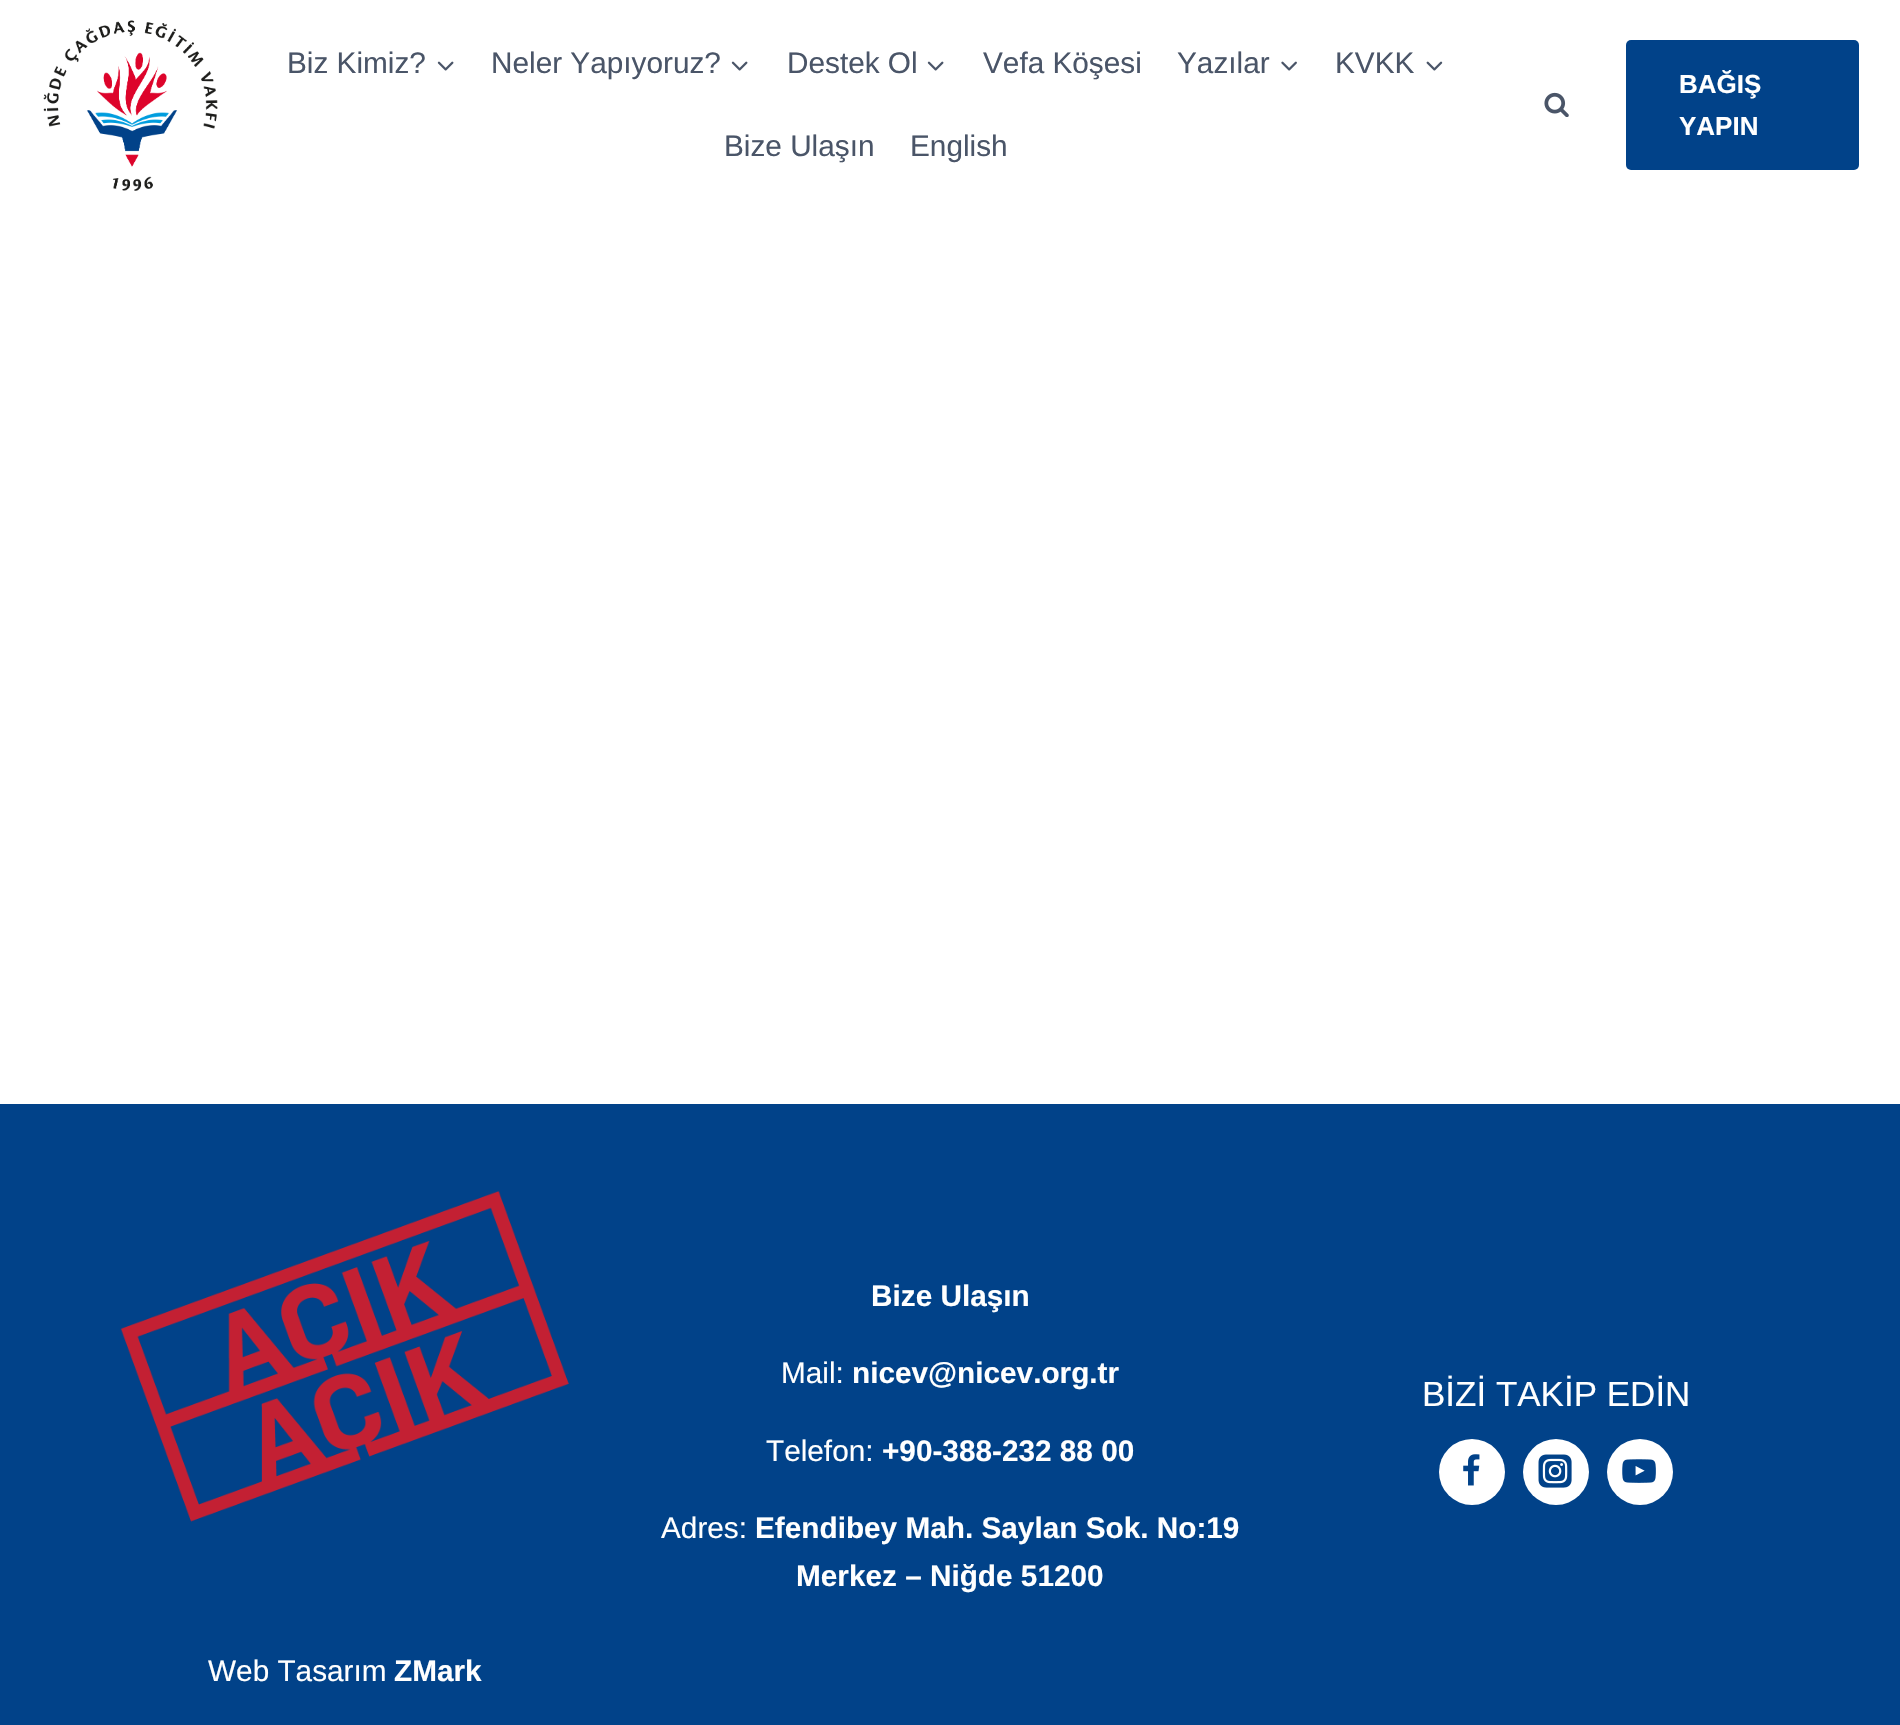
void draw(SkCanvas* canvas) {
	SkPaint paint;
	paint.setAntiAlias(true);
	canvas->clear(0xffffffff);
	canvas->drawImageRect(SkImages::DeferredFromEncodedData(SkData::MakeFromFileName("img1.png")), SkRect::MakeXYWH(43, 20, 175, 171), SkSamplingOptions());
	SkFont f1(fontMgr->matchFamilyStyle("Liberation Sans", SkFontStyle::Normal()), 29.75);
	f1.setSubpixel(true);
	paint.setColor(0xff4a5568);
	canvas->drawString("Biz Kimiz?", 287, 73, f1, paint);
	canvas->drawImageRect(SkImages::DeferredFromEncodedData(SkData::MakeFromFileName("img2.png")), SkRect::MakeXYWH(437, 61, 17, 10), SkSamplingOptions());
	canvas->drawString("Neler Yapıyoruz?", 491, 73, f1, paint);
	canvas->drawImageRect(SkImages::DeferredFromEncodedData(SkData::MakeFromFileName("img2.png")), SkRect::MakeXYWH(731, 61, 17, 10), SkSamplingOptions());
	canvas->drawString("Destek Ol", 787, 73, f1, paint);
	canvas->drawImageRect(SkImages::DeferredFromEncodedData(SkData::MakeFromFileName("img2.png")), SkRect::MakeXYWH(927, 61, 17, 10), SkSamplingOptions());
	canvas->drawString("Vefa Köşesi", 983, 73, f1, paint);
	canvas->drawString("Yazılar", 1177, 73, f1, paint);
	canvas->drawImageRect(SkImages::DeferredFromEncodedData(SkData::MakeFromFileName("img3.png")), SkRect::MakeXYWH(1281, 61, 16, 10), SkSamplingOptions());
	canvas->drawString("KVKK", 1335, 73, f1, paint);
	canvas->drawImageRect(SkImages::DeferredFromEncodedData(SkData::MakeFromFileName("img4.png")), SkRect::MakeXYWH(1426, 61, 17, 10), SkSamplingOptions());
	canvas->drawString("Bize Ulaşın", 724, 156, f1, paint);
	canvas->drawString("English", 910, 156, f1, paint);
	canvas->drawImageRect(SkImages::DeferredFromEncodedData(SkData::MakeFromFileName("img5.png")), SkRect::MakeXYWH(1544, 92, 25, 25), SkSamplingOptions());
	paint.setColor(0xff014289);
	canvas->drawRoundRect(SkRect::MakeXYWH(1626, 40, 233, 130), 5, 5, paint);
	SkFont f2(fontMgr->matchFamilyStyle("Liberation Sans", SkFontStyle::Bold()), 26);
	f2.setSubpixel(true);
	paint.setColor(0xffffffff);
	canvas->drawString("BAĞIŞ", 1679, 93, f2, paint);
	canvas->drawString("YAPIN", 1679, 135, f2, paint);
	paint.setColor(0xff014289);
	canvas->drawRect(SkRect::MakeXYWH(0, 1104, 1900, 621), paint);
	SkFont f3(fontMgr->matchFamilyStyle("Liberation Sans", SkFontStyle::Bold()), 29.75);
	f3.setSubpixel(true);
	paint.setColor(0xffffffff);
	canvas->drawString("Bize Ulaşın", 871, 1306, f3, paint);
	canvas->drawString("Mail:", 781, 1383, f1, paint);
	canvas->drawString("nicev@nicev.org.tr", 852, 1383, f3, paint);
	canvas->drawString("Telefon:", 766, 1461, f1, paint);
	canvas->drawString("+90-388-232 88 00", 882, 1461, f3, paint);
	canvas->drawString("Adres:", 661, 1538, f1, paint);
	canvas->drawString("Efendibey Mah. Saylan Sok. No:19", 755, 1538, f3, paint);
	canvas->drawString("Merkez – Niğde 51200", 796, 1586, f3, paint);
	SkFont f4(fontMgr->matchFamilyStyle("Liberation Sans", SkFontStyle::Normal()), 35);
	f4.setSubpixel(true);
	canvas->drawString("BİZİ TAKİP EDİN", 1422, 1406, f4, paint);
	canvas->drawCircle(1472, 1472, 33, paint);
	canvas->drawImageRect(SkImages::DeferredFromEncodedData(SkData::MakeFromFileName("img6.png")), SkRect::MakeXYWH(1463, 1454, 17, 32), SkSamplingOptions());
	canvas->drawCircle(1556, 1472, 33, paint);
	canvas->drawImageRect(SkImages::DeferredFromEncodedData(SkData::MakeFromFileName("img7.png")), SkRect::MakeXYWH(1538, 1454, 34, 34), SkSamplingOptions());
	canvas->drawCircle(1640, 1472, 33, paint);
	canvas->drawImageRect(SkImages::DeferredFromEncodedData(SkData::MakeFromFileName("img8.png")), SkRect::MakeXYWH(1622, 1459, 34, 24), SkSamplingOptions());
	canvas->drawImageRect(SkImages::DeferredFromEncodedData(SkData::MakeFromFileName("img9.png")), SkRect::MakeXYWH(120, 1191, 449, 331), SkSamplingOptions());
	canvas->drawString("Web Tasarım", 208, 1681, f1, paint);
	canvas->drawString("ZMark", 394, 1681, f3, paint);
}
